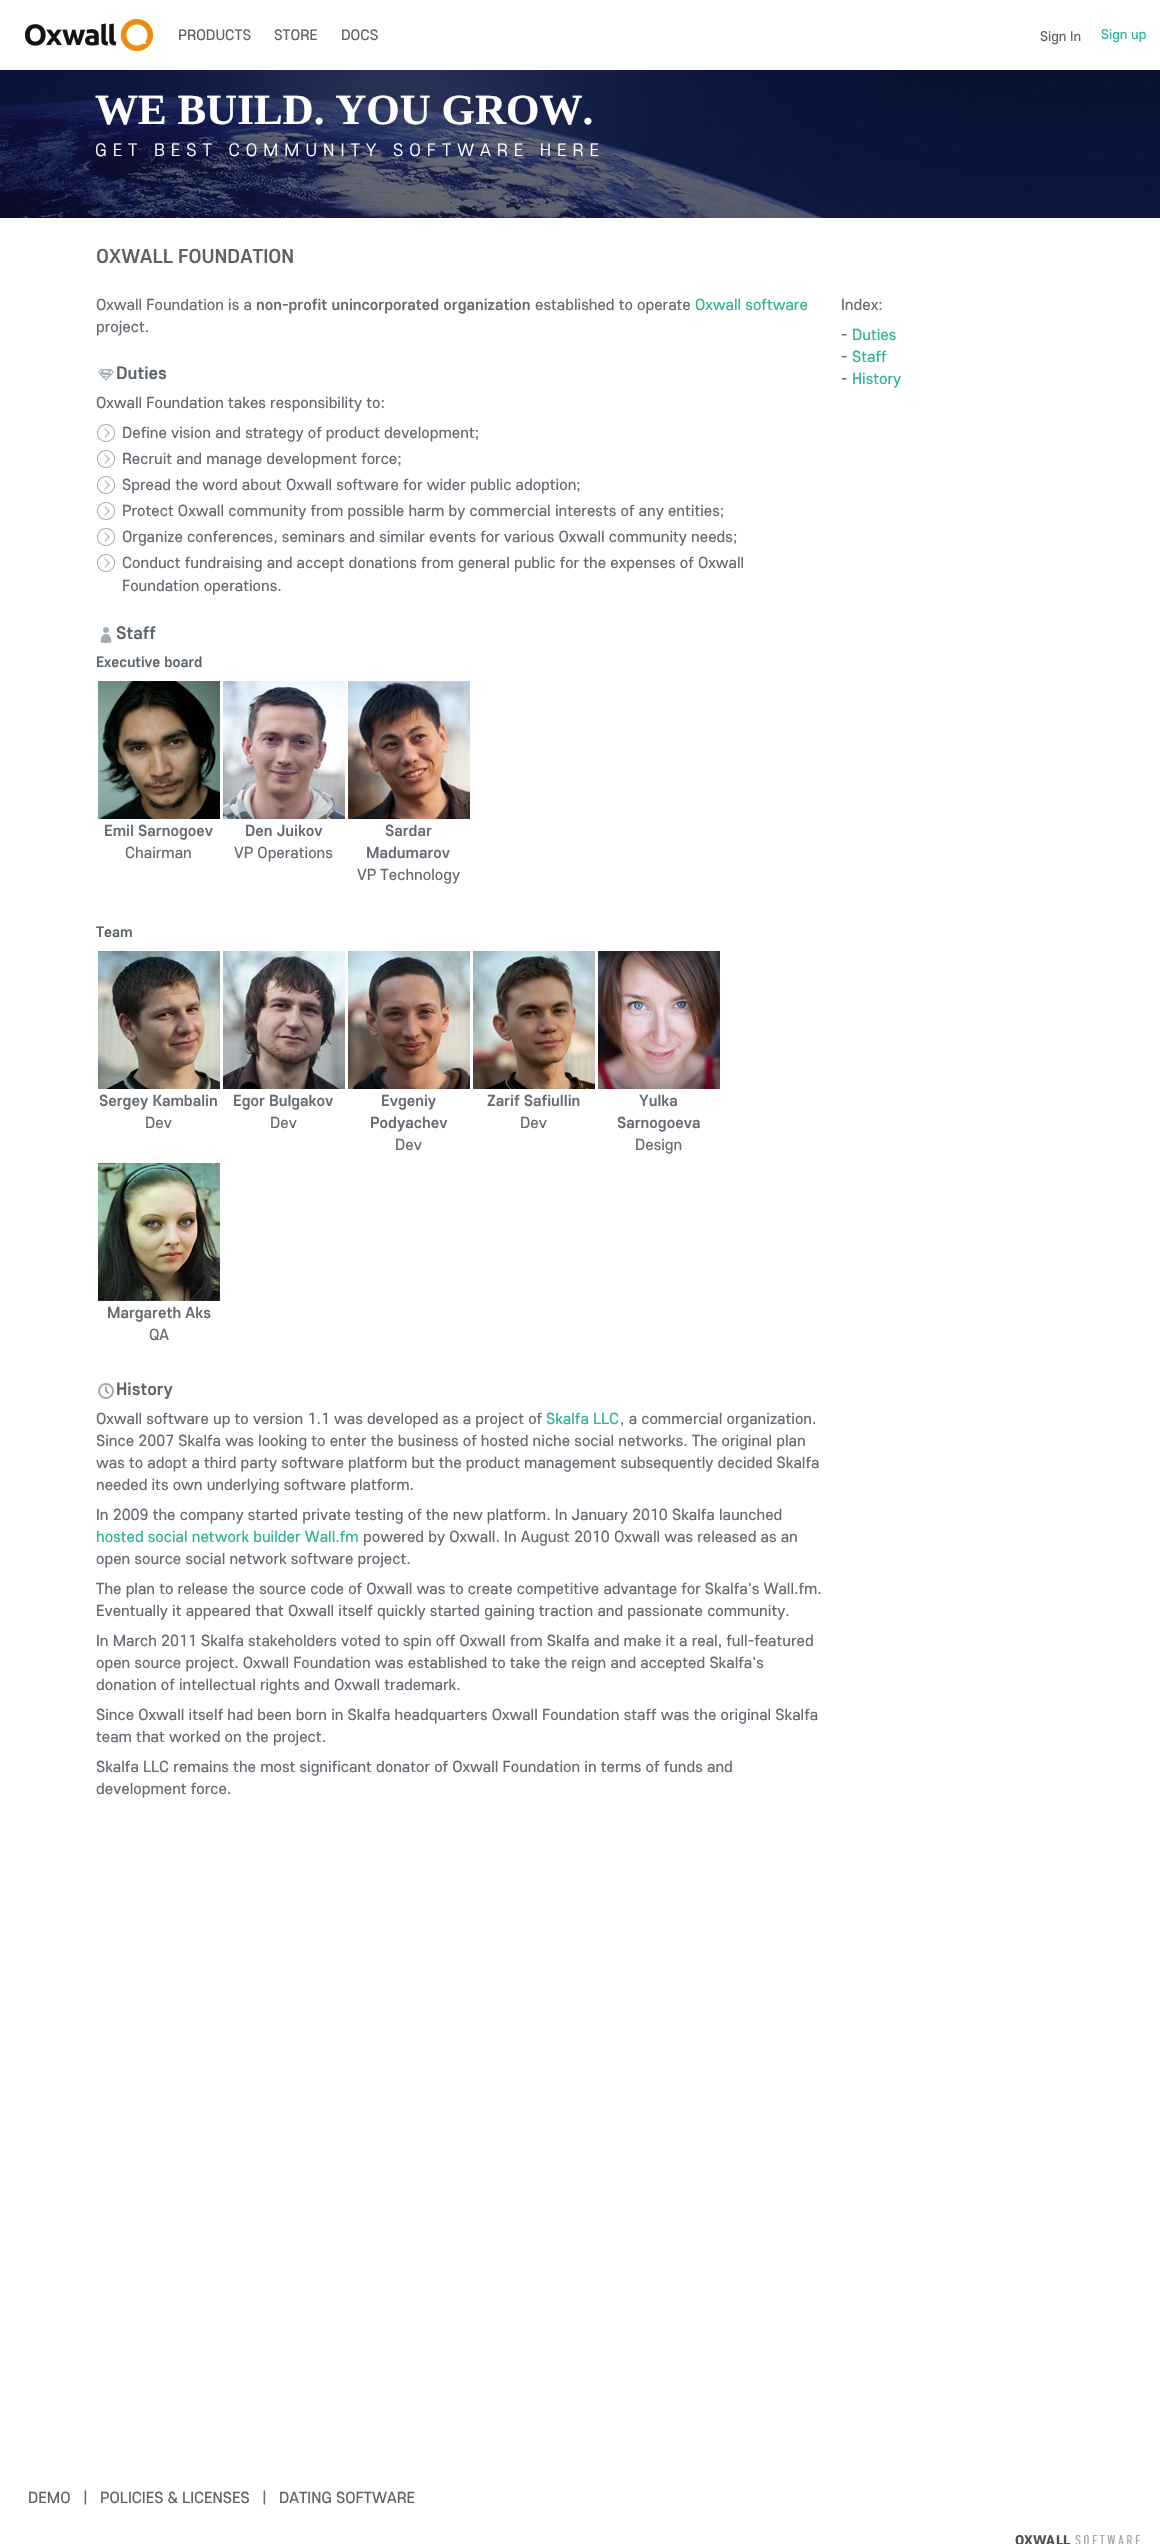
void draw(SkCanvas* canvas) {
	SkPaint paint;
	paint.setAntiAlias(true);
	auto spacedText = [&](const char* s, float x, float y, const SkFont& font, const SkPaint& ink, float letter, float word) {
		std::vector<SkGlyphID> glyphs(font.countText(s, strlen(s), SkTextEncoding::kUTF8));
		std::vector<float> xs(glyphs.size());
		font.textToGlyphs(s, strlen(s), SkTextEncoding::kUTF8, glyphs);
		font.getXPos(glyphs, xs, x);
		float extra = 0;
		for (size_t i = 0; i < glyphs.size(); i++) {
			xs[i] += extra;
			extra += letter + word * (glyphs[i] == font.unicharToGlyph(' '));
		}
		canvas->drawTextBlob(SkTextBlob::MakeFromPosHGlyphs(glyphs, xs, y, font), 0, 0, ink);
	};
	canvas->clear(0xffffffff);
	canvas->drawImageRect(SkImages::DeferredFromEncodedData(SkData::MakeFromFileName("img1.png")), SkRect::MakeXYWH(25, 19, 128, 32), SkSamplingOptions());
	SkFont f1(fontMgr->matchFamilyStyle("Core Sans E", SkFontStyle::Normal()), 15);
	f1.setSubpixel(true);
	paint.setColor(0xff5b646a);
	canvas->drawString("PRODUCTS", 178, 40, f1, paint);
	canvas->drawString("STORE", 274, 40, f1, paint);
	canvas->drawString("DOCS", 341, 40, f1, paint);
	SkFont f2(fontMgr->matchFamilyStyle("Core Sans E", SkFontStyle::Normal()), 14);
	f2.setSubpixel(true);
	canvas->drawString("Sign In", 1040, 41, f2, paint);
	paint.setColor(0xff2db395);
	canvas->drawString("Sign up", 1101, 39, f2, paint);
	canvas->drawImageRect(SkImages::DeferredFromEncodedData(SkData::MakeFromFileName("img2.png")), SkRect::MakeXYWH(0, 70, 1160, 148), SkSamplingOptions());
	SkFont f3(fontMgr->matchFamilyStyle("Liberation Serif", SkFontStyle::Bold()), 43);
	f3.setSubpixel(true);
	paint.setColor(0xffffffff);
	canvas->drawString("WE BUILD. YOU GROW.", 95, 124, f3, paint);
	SkFont f4(fontMgr->matchFamilyStyle("Core Sans E", SkFontStyle(300, SkFontStyle::kNormal_Width, SkFontStyle::kUpright_Slant)), 18);
	f4.setSubpixel(true);
	spacedText("GET BEST COMMUNITY SOFTWARE HERE", 95, 156, f4, paint, 6, 0);
	SkFont f5(fontMgr->matchFamilyStyle("Core Sans E", SkFontStyle(500, SkFontStyle::kNormal_Width, SkFontStyle::kUpright_Slant)), 20);
	f5.setSubpixel(true);
	paint.setColor(0xff5b646a);
	canvas->drawString("OXWALL FOUNDATION", 96, 263, f5, paint);
	SkFont f6(fontMgr->matchFamilyStyle("Core Sans E", SkFontStyle::Normal()), 16);
	f6.setSubpixel(true);
	paint.setColor(0xff666a73);
	canvas->drawString("Oxwall Foundation is a", 96, 310, f6, paint);
	SkFont f7(fontMgr->matchFamilyStyle("Core Sans E", SkFontStyle(500, SkFontStyle::kNormal_Width, SkFontStyle::kUpright_Slant)), 16);
	f7.setSubpixel(true);
	canvas->drawString("non-profit unincorporated organization", 256, 310, f7, paint);
	canvas->drawString("established to operate", 535, 310, f6, paint);
	paint.setColor(0xff2db395);
	canvas->drawString("Oxwall software", 695, 310, f6, paint);
	paint.setColor(0xff666a73);
	canvas->drawString("project.", 96, 332, f6, paint);
	canvas->drawImageRect(SkImages::DeferredFromEncodedData(SkData::MakeFromFileName("img3.png")), SkRect::MakeXYWH(98, 369, 16, 12), SkSamplingOptions());
	SkFont f8(fontMgr->matchFamilyStyle("Core Sans E", SkFontStyle(500, SkFontStyle::kNormal_Width, SkFontStyle::kUpright_Slant)), 18);
	f8.setSubpixel(true);
	paint.setColor(0xff5b646a);
	canvas->drawString("Duties", 116, 379, f8, paint);
	paint.setColor(0xff666a73);
	canvas->drawString("Oxwall Foundation takes responsibility to:", 96, 408, f6, paint);
	canvas->drawImageRect(SkImages::DeferredFromEncodedData(SkData::MakeFromFileName("img4.png")), SkRect::MakeXYWH(97, 424, 18, 18), SkSamplingOptions());
	canvas->drawString("Define vision and strategy of product development;", 122, 438, f6, paint);
	canvas->drawImageRect(SkImages::DeferredFromEncodedData(SkData::MakeFromFileName("img4.png")), SkRect::MakeXYWH(97, 450, 18, 18), SkSamplingOptions());
	canvas->drawString("Recruit and manage development force;", 122, 464, f6, paint);
	canvas->drawImageRect(SkImages::DeferredFromEncodedData(SkData::MakeFromFileName("img4.png")), SkRect::MakeXYWH(97, 476, 18, 18), SkSamplingOptions());
	canvas->drawString("Spread the word about Oxwall software for wider public adoption;", 122, 490, f6, paint);
	canvas->drawImageRect(SkImages::DeferredFromEncodedData(SkData::MakeFromFileName("img4.png")), SkRect::MakeXYWH(97, 502, 18, 18), SkSamplingOptions());
	canvas->drawString("Protect Oxwall community from possible harm by commercial interests of any entities;", 122, 516, f6, paint);
	canvas->drawImageRect(SkImages::DeferredFromEncodedData(SkData::MakeFromFileName("img4.png")), SkRect::MakeXYWH(97, 528, 18, 18), SkSamplingOptions());
	canvas->drawString("Organize conferences, seminars and similar events for various Oxwall community needs;", 122, 542, f6, paint);
	canvas->drawImageRect(SkImages::DeferredFromEncodedData(SkData::MakeFromFileName("img4.png")), SkRect::MakeXYWH(97, 554, 18, 18), SkSamplingOptions());
	canvas->drawString("Conduct fundraising and accept donations from general public for the expenses of Oxwall", 122, 568, f6, paint);
	canvas->drawString("Foundation operations.", 122, 591, f6, paint);
	canvas->drawImageRect(SkImages::DeferredFromEncodedData(SkData::MakeFromFileName("img5.png")), SkRect::MakeXYWH(100, 627, 12, 16), SkSamplingOptions());
	paint.setColor(0xff5b646a);
	canvas->drawString("Staff", 116, 639, f8, paint);
	SkFont f9(fontMgr->matchFamilyStyle("Core Sans E", SkFontStyle(500, SkFontStyle::kNormal_Width, SkFontStyle::kUpright_Slant)), 15);
	f9.setSubpixel(true);
	canvas->drawString("Executive board", 96, 667, f9, paint);
	canvas->drawImageRect(SkImages::DeferredFromEncodedData(SkData::MakeFromFileName("img6.png")), SkRect::MakeXYWH(98, 681, 122, 138), SkSamplingOptions());
	paint.setColor(0xff666a73);
	canvas->drawString("Emil Sarnogoev", 104, 836, f7, paint);
	canvas->drawString("Chairman", 125, 858, f6, paint);
	canvas->drawImageRect(SkImages::DeferredFromEncodedData(SkData::MakeFromFileName("img7.png")), SkRect::MakeXYWH(223, 681, 122, 138), SkSamplingOptions());
	canvas->drawString("Den Juikov", 245, 836, f7, paint);
	canvas->drawString("VP Operations", 234, 858, f6, paint);
	canvas->drawImageRect(SkImages::DeferredFromEncodedData(SkData::MakeFromFileName("img8.png")), SkRect::MakeXYWH(348, 681, 122, 138), SkSamplingOptions());
	canvas->drawString("Sardar", 385, 836, f7, paint);
	canvas->drawString("Madumarov", 366, 858, f7, paint);
	canvas->drawString("VP Technology", 357, 880, f6, paint);
	paint.setColor(0xff5b646a);
	canvas->drawString("Team", 96, 937, f9, paint);
	canvas->drawImageRect(SkImages::DeferredFromEncodedData(SkData::MakeFromFileName("img9.png")), SkRect::MakeXYWH(98, 951, 122, 138), SkSamplingOptions());
	paint.setColor(0xff666a73);
	canvas->drawString("Sergey Kambalin", 99, 1106, f7, paint);
	canvas->drawString("Dev", 145, 1128, f6, paint);
	canvas->drawImageRect(SkImages::DeferredFromEncodedData(SkData::MakeFromFileName("img10.png")), SkRect::MakeXYWH(223, 951, 122, 138), SkSamplingOptions());
	canvas->drawString("Egor Bulgakov", 233, 1106, f7, paint);
	canvas->drawString("Dev", 270, 1128, f6, paint);
	canvas->drawImageRect(SkImages::DeferredFromEncodedData(SkData::MakeFromFileName("img11.png")), SkRect::MakeXYWH(348, 951, 122, 138), SkSamplingOptions());
	canvas->drawString("Evgeniy", 381, 1106, f7, paint);
	canvas->drawString("Podyachev", 370, 1128, f7, paint);
	canvas->drawString("Dev", 395, 1150, f6, paint);
	canvas->drawImageRect(SkImages::DeferredFromEncodedData(SkData::MakeFromFileName("img12.png")), SkRect::MakeXYWH(473, 951, 122, 138), SkSamplingOptions());
	canvas->drawString("Zarif Safiullin", 487, 1106, f7, paint);
	canvas->drawString("Dev", 520, 1128, f6, paint);
	canvas->drawImageRect(SkImages::DeferredFromEncodedData(SkData::MakeFromFileName("img13.png")), SkRect::MakeXYWH(598, 951, 122, 138), SkSamplingOptions());
	canvas->drawString("Yulka", 639, 1106, f7, paint);
	canvas->drawString("Sarnogoeva", 617, 1128, f7, paint);
	canvas->drawString("Design", 635, 1150, f6, paint);
	canvas->drawImageRect(SkImages::DeferredFromEncodedData(SkData::MakeFromFileName("img14.png")), SkRect::MakeXYWH(98, 1163, 122, 138), SkSamplingOptions());
	canvas->drawString("Margareth Aks", 107, 1318, f7, paint);
	canvas->drawString("QA", 149, 1340, f6, paint);
	canvas->drawImageRect(SkImages::DeferredFromEncodedData(SkData::MakeFromFileName("img15.png")), SkRect::MakeXYWH(98, 1383, 16, 16), SkSamplingOptions());
	paint.setColor(0xff5b646a);
	canvas->drawString("History", 116, 1395, f8, paint);
	paint.setColor(0xff666a73);
	canvas->drawString("Oxwall software up to version 1.1 was developed as a project of", 96, 1424, f6, paint);
	paint.setColor(0xff2db395);
	canvas->drawString("Skalfa LLC", 546, 1424, f6, paint);
	paint.setColor(0xff666a73);
	canvas->drawString(", a commercial organization.", 620, 1424, f6, paint);
	canvas->drawString("Since 2007 Skalfa was looking to enter the business of hosted niche social networks. The original plan", 96, 1446, f6, paint);
	canvas->drawString("was to adopt a third party software platform but the product management subsequently decided Skalfa", 96, 1468, f6, paint);
	canvas->drawString("needed its own underlying software platform.", 96, 1490, f6, paint);
	canvas->drawString("In 2009 the company started private testing of the new platform. In January 2010 Skalfa launched", 96, 1520, f6, paint);
	paint.setColor(0xff2db395);
	canvas->drawString("hosted social network builder Wall.fm", 96, 1542, f6, paint);
	paint.setColor(0xff666a73);
	canvas->drawString("powered by Oxwall. In August 2010 Oxwall was released as an", 363, 1542, f6, paint);
	canvas->drawString("open source social network software project.", 96, 1564, f6, paint);
	canvas->drawString("The plan to release the source code of Oxwall was to create competitive advantage for Skalfa's Wall.fm.", 96, 1594, f6, paint);
	canvas->drawString("Eventually it appeared that Oxwall itself quickly started gaining traction and passionate community.", 96, 1616, f6, paint);
	canvas->drawString("In March 2011 Skalfa stakeholders voted to spin off Oxwall from Skalfa and make it a real, full-featured", 96, 1646, f6, paint);
	canvas->drawString("open source project. Oxwall Foundation was established to take the reign and accepted Skalfa's", 96, 1668, f6, paint);
	canvas->drawString("donation of intellectual rights and Oxwall trademark.", 96, 1690, f6, paint);
	canvas->drawString("Since Oxwall itself had been born in Skalfa headquarters Oxwall Foundation staff was the original Skalfa", 96, 1720, f6, paint);
	canvas->drawString("team that worked on the project.", 96, 1742, f6, paint);
	canvas->drawString("Skalfa LLC remains the most significant donator of Oxwall Foundation in terms of funds and", 96, 1772, f6, paint);
	canvas->drawString("development force.", 96, 1794, f6, paint);
	canvas->drawString("Index:", 841, 310, f6, paint);
	canvas->drawString("-", 841, 340, f6, paint);
	paint.setColor(0xff2db395);
	canvas->drawString("Duties", 852, 340, f6, paint);
	paint.setColor(0xff666a73);
	canvas->drawString("-", 841, 362, f6, paint);
	paint.setColor(0xff2db395);
	canvas->drawString("Staff", 852, 362, f6, paint);
	paint.setColor(0xff666a73);
	canvas->drawString("-", 841, 384, f6, paint);
	paint.setColor(0xff2db395);
	canvas->drawString("History", 852, 384, f6, paint);
	paint.setColor(0xff5b646a);
	canvas->drawString("DEMO", 28, 2503, f6, paint);
	paint.setColor(0xff666a73);
	canvas->drawString("|", 83, 2503, f6, paint);
	paint.setColor(0xff5b646a);
	canvas->drawString("POLICIES & LICENSES", 100, 2503, f6, paint);
	paint.setColor(0xff666a73);
	canvas->drawString("|", 262, 2503, f6, paint);
	paint.setColor(0xff5b646a);
	canvas->drawString("DATING SOFTWARE", 279, 2503, f6, paint);
	canvas->drawImageRect(SkImages::DeferredFromEncodedData(SkData::MakeFromFileName("img16.png")), SkRect::MakeXYWH(1015, 2534, 126, 10), SkSamplingOptions());
}
